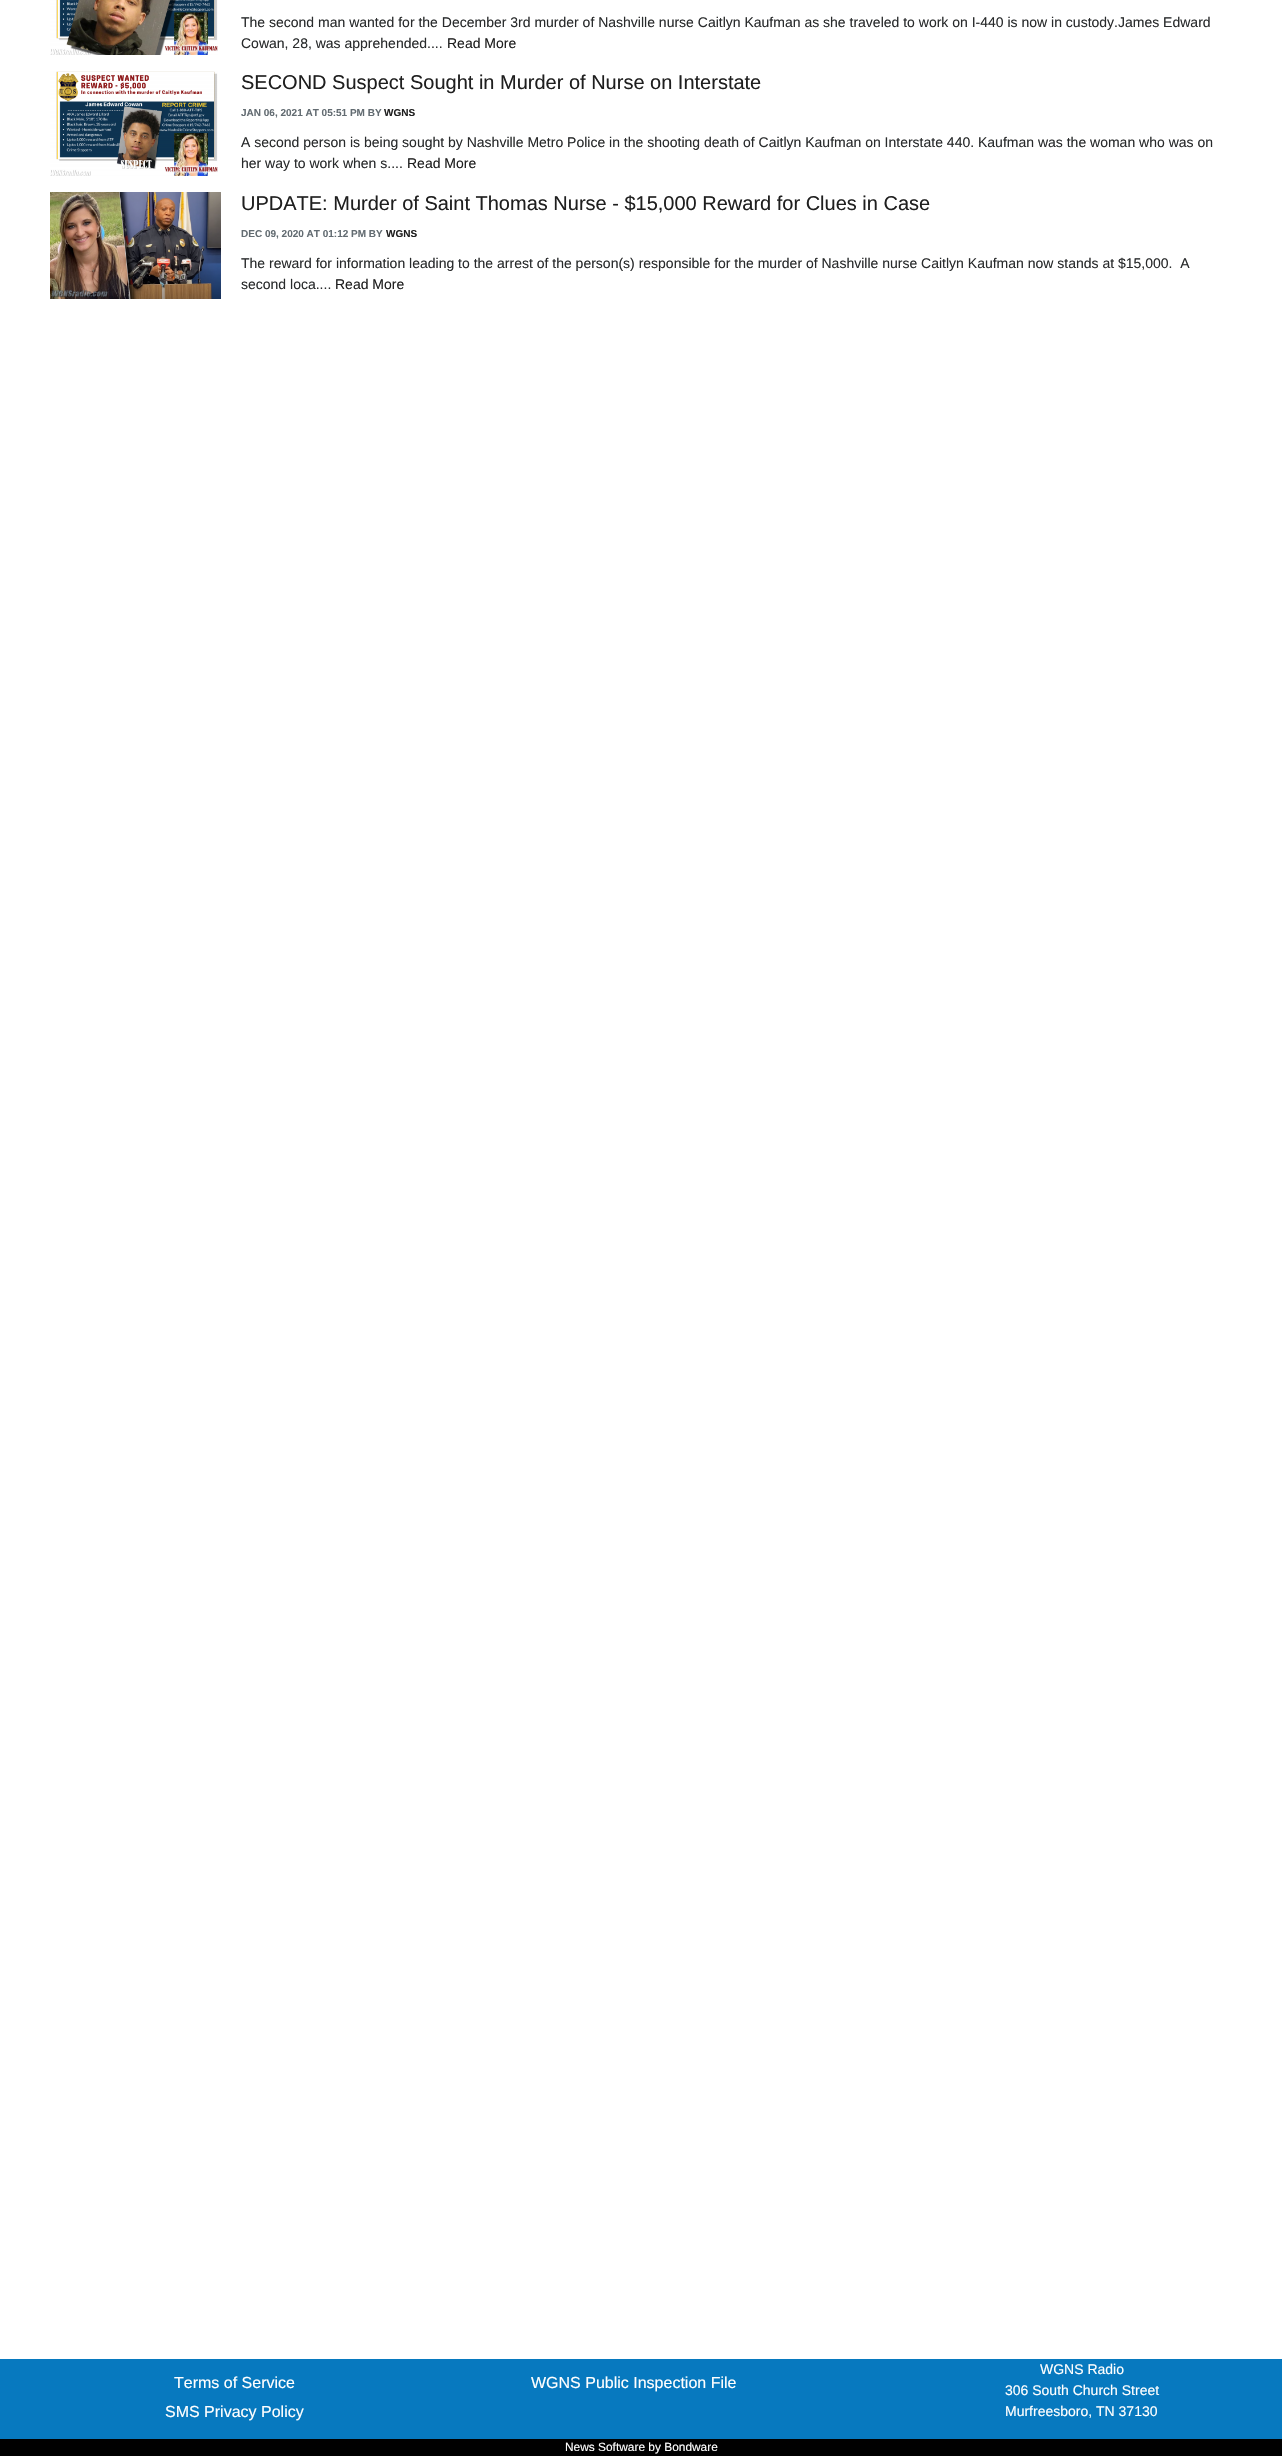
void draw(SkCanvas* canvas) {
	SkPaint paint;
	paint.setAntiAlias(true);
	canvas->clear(0xffffffff);
	canvas->drawImageRect(SkImages::DeferredFromEncodedData(SkData::MakeFromFileName("img1.png")), SkRect::MakeXYWH(50, 0, 168, 55), SkSamplingOptions());
	SkFont f1(fontMgr->matchFamilyStyle("Liberation Sans", SkFontStyle::Normal()), 14);
	f1.setSubpixel(true);
	paint.setColor(0xff292b2c);
	canvas->drawString("The second man wanted for the December 3rd murder of Nashville nurse Caitlyn Kaufman as she traveled to work on I-440 is now in custody.James Edward", 241, 27, f1, paint);
	canvas->drawString("Cowan, 28, was apprehended....", 241, 48, f1, paint);
	paint.setColor(0xff1f1f1f);
	canvas->drawString("Read More", 447, 48, f1, paint);
	canvas->drawImageRect(SkImages::DeferredFromEncodedData(SkData::MakeFromFileName("img2.png")), SkRect::MakeXYWH(50, 71, 168, 105), SkSamplingOptions());
	SkFont f2(fontMgr->matchFamilyStyle("Liberation Sans", SkFontStyle::Normal()), 20);
	f2.setSubpixel(true);
	canvas->drawString("SECOND Suspect Sought in Murder of Nurse on Interstate", 241, 89, f2, paint);
	SkFont f3(fontMgr->matchFamilyStyle("Liberation Sans", SkFontStyle::Bold()), 10);
	f3.setSubpixel(true);
	paint.setColor(0xff636c72);
	canvas->drawString("JAN 06, 2021 AT 05:51 PM BY", 241, 116, f3, paint);
	paint.setColor(0xff1f1f1f);
	canvas->drawString("WGNS", 384, 116, f3, paint);
	paint.setColor(0xff292b2c);
	canvas->drawString("A second person is being sought by Nashville Metro Police in the shooting death of Caitlyn Kaufman on Interstate 440. Kaufman was the woman who was on", 241, 147, f1, paint);
	canvas->drawString("her way to work when s....", 241, 168, f1, paint);
	paint.setColor(0xff1f1f1f);
	canvas->drawString("Read More", 407, 168, f1, paint);
	canvas->drawImageRect(SkImages::DeferredFromEncodedData(SkData::MakeFromFileName("img3.png")), SkRect::MakeXYWH(50, 192, 171, 107), SkSamplingOptions());
	canvas->drawString("UPDATE: Murder of Saint Thomas Nurse - $15,000 Reward for Clues in Case", 241, 210, f2, paint);
	paint.setColor(0xff636c72);
	canvas->drawString("DEC 09, 2020 AT 01:12 PM BY", 241, 237, f3, paint);
	paint.setColor(0xff1f1f1f);
	canvas->drawString("WGNS", 386, 237, f3, paint);
	paint.setColor(0xff292b2c);
	canvas->drawString("The reward for information leading to the arrest of the person(s) responsible for the murder of Nashville nurse Caitlyn Kaufman now stands at $15,000.  A", 241, 268, f1, paint);
	canvas->drawString("second loca....", 241, 289, f1, paint);
	paint.setColor(0xff1f1f1f);
	canvas->drawString("Read More", 335, 289, f1, paint);
	paint.setColor(0xff0779bf);
	canvas->drawRect(SkRect::MakeXYWH(0, 2359, 1282, 80), paint);
	SkFont f4(fontMgr->matchFamilyStyle("Liberation Sans", SkFontStyle::Normal()), 16);
	f4.setSubpixel(true);
	paint.setColor(0xffffffff);
	canvas->drawString("Terms of Service", 174, 2388, f4, paint);
	canvas->drawString("SMS Privacy Policy", 165, 2417, f4, paint);
	canvas->drawString("WGNS Public Inspection File", 531, 2388, f4, paint);
	canvas->drawString("WGNS Radio", 1040, 2374, f1, paint);
	canvas->drawString("306 South Church Street", 1005, 2395, f1, paint);
	canvas->drawString("Murfreesboro, TN 37130", 1005, 2416, f1, paint);
	paint.setColor(0xff000000);
	canvas->drawRect(SkRect::MakeXYWH(0, 2439, 1282, 17), paint);
	SkFont f5(fontMgr->matchFamilyStyle("Liberation Sans", SkFontStyle::Normal()), 11.9);
	f5.setSubpixel(true);
	paint.setColor(0xffffffff);
	canvas->drawString("News Software by Bondware", 565, 2451, f5, paint);
}
